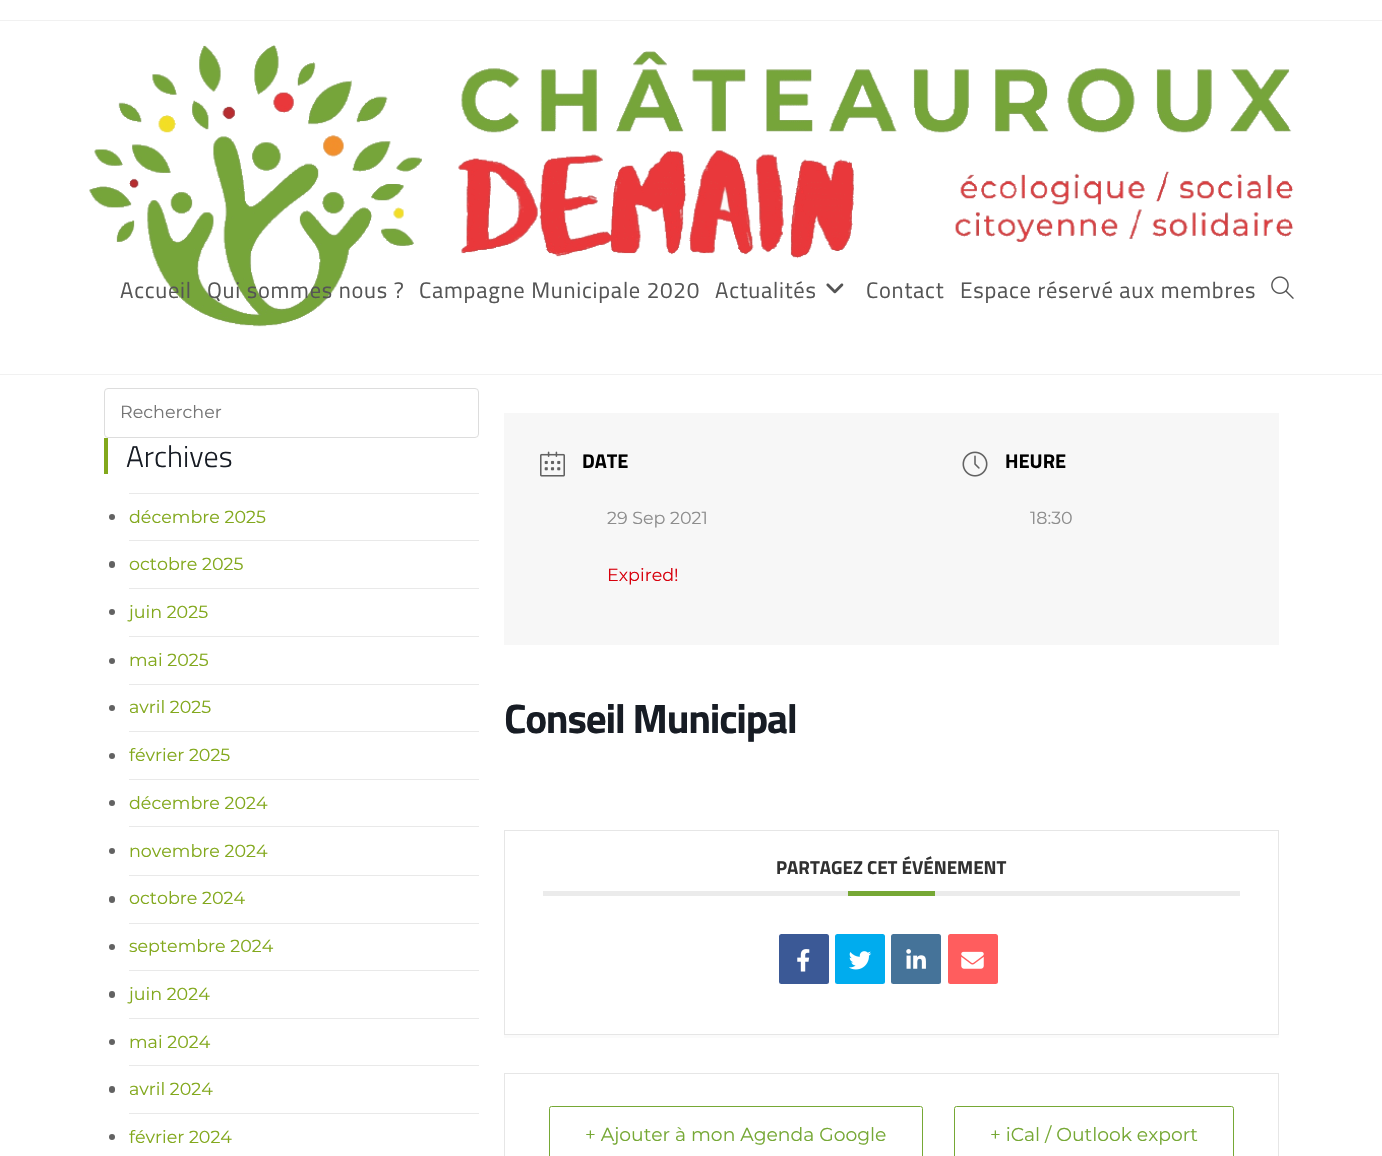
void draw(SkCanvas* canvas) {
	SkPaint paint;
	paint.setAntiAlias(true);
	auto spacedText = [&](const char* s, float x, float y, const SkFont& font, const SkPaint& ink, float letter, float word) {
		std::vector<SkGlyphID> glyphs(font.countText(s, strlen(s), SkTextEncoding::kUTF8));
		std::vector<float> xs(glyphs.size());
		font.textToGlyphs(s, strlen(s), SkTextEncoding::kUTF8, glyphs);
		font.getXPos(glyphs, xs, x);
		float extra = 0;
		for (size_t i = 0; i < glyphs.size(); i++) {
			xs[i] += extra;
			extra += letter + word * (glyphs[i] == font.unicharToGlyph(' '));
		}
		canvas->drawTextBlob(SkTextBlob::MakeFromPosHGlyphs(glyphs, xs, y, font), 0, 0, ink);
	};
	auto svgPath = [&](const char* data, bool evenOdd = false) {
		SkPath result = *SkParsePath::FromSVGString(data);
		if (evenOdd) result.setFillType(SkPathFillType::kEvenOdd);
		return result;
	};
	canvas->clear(0xffffffff);
	paint.setColor(0xfff1f1f1);
	canvas->drawRect(SkRect::MakeXYWH(0, 20, 1382, 1), paint);
	canvas->drawRect(SkRect::MakeXYWH(0, 374, 1382, 1), paint);
	canvas->drawImageRect(SkImages::DeferredFromEncodedData(SkData::MakeFromFileName("img1.png")), SkRect::MakeXYWH(89, 45, 1205, 282), SkSamplingOptions());
	SkFont f1(fontMgr->matchFamilyStyle("Titillium Web", SkFontStyle::Normal()), 22.5);
	f1.setSubpixel(true);
	paint.setColor(0xff555555);
	spacedText("Accueil", 120, 298, f1, paint, 0.75, 0);
	spacedText("Qui sommes nous ?", 207, 298, f1, paint, 0.75, 0);
	spacedText("Campagne Municipale 2020", 419, 298, f1, paint, 0.75, 0);
	spacedText("Actualités", 715, 298, f1, paint, 0.75, 0);
	canvas->drawImageRect(SkImages::DeferredFromEncodedData(SkData::MakeFromFileName("img2.png")), SkRect::MakeXYWH(826, 283, 18, 11), SkSamplingOptions());
	spacedText("Contact", 866, 298, f1, paint, 0.75, 0);
	spacedText("Espace réservé aux membres", 960, 298, f1, paint, 0.75, 0);
	canvas->drawImageRect(SkImages::DeferredFromEncodedData(SkData::MakeFromFileName("img3.png")), SkRect::MakeXYWH(1271, 276, 23, 23), SkSamplingOptions());
	paint.setStroke(true);
	paint.setStrokeWidth(1);
	paint.setColor(0xffdddddd);
	canvas->drawRoundRect(SkRect::MakeXYWH(104.5, 388.5, 374, 49), 3.5, 3.5, paint);
	SkFont f2(fontMgr->matchFamilyStyle("Montserrat", SkFontStyle::Normal()), 17.5);
	f2.setSubpixel(true);
	paint.setStroke(false);
	paint.setColor(0xff757575);
	canvas->drawString("Rechercher", 120, 418, f2, paint);
	paint.setColor(0xff82a81c);
	canvas->drawRect(SkRect::MakeXYWH(104, 438, 4, 36), paint);
	SkFont f3(fontMgr->matchFamilyStyle("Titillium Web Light", SkFontStyle(300, SkFontStyle::kNormal_Width, SkFontStyle::kUpright_Slant)), 30);
	f3.setSubpixel(true);
	paint.setColor(0xff171c24);
	canvas->drawString("Archives", 126, 467, f3, paint);
	paint.setColor(0xffe9e9e9);
	canvas->drawRect(SkRect::MakeXYWH(129, 493, 350, 1), paint);
	canvas->drawRect(SkRect::MakeXYWH(129, 540, 350, 1), paint);
	paint.setColor(0xff626262);
	canvas->drawCircle(112, 517, 3, paint);
	paint.setColor(0xff82a81c);
	canvas->drawString("décembre 2025", 129, 523, f2, paint);
	paint.setColor(0xffe9e9e9);
	canvas->drawRect(SkRect::MakeXYWH(129, 588, 350, 1), paint);
	paint.setColor(0xff626262);
	canvas->drawRoundRect(SkRect::MakeXYWH(109, 561, 6, 7), 3, 3, paint);
	paint.setColor(0xff82a81c);
	canvas->drawString("octobre 2025", 129, 570, f2, paint);
	paint.setColor(0xffe9e9e9);
	canvas->drawRect(SkRect::MakeXYWH(129, 636, 350, 1), paint);
	paint.setColor(0xff626262);
	canvas->drawCircle(112, 612, 3, paint);
	paint.setColor(0xff82a81c);
	canvas->drawString("juin 2025", 129, 618, f2, paint);
	paint.setColor(0xffe9e9e9);
	canvas->drawRect(SkRect::MakeXYWH(129, 684, 350, 1), paint);
	paint.setColor(0xff626262);
	canvas->drawCircle(112, 661, 3, paint);
	paint.setColor(0xff82a81c);
	canvas->drawString("mai 2025", 129, 666, f2, paint);
	paint.setColor(0xffe9e9e9);
	canvas->drawRect(SkRect::MakeXYWH(129, 731, 350, 1), paint);
	paint.setColor(0xff626262);
	canvas->drawCircle(112, 708, 3, paint);
	paint.setColor(0xff82a81c);
	canvas->drawString("avril 2025", 129, 713, f2, paint);
	paint.setColor(0xffe9e9e9);
	canvas->drawRect(SkRect::MakeXYWH(129, 779, 350, 1), paint);
	paint.setColor(0xff626262);
	canvas->drawCircle(112, 756, 3, paint);
	paint.setColor(0xff82a81c);
	canvas->drawString("février 2025", 129, 761, f2, paint);
	paint.setColor(0xffe9e9e9);
	canvas->drawRect(SkRect::MakeXYWH(129, 826, 350, 1), paint);
	paint.setColor(0xff626262);
	canvas->drawCircle(112, 803, 3, paint);
	paint.setColor(0xff82a81c);
	canvas->drawString("décembre 2024", 129, 809, f2, paint);
	paint.setColor(0xffe9e9e9);
	canvas->drawRect(SkRect::MakeXYWH(129, 875, 350, 1), paint);
	paint.setColor(0xff626262);
	canvas->drawCircle(112, 851, 3, paint);
	paint.setColor(0xff82a81c);
	canvas->drawString("novembre 2024", 129, 857, f2, paint);
	paint.setColor(0xffe9e9e9);
	canvas->drawRect(SkRect::MakeXYWH(129, 923, 350, 1), paint);
	paint.setColor(0xff626262);
	canvas->drawRoundRect(SkRect::MakeXYWH(109, 896, 6, 7), 3, 3, paint);
	paint.setColor(0xff82a81c);
	canvas->drawString("octobre 2024", 129, 904, f2, paint);
	paint.setColor(0xffe9e9e9);
	canvas->drawRect(SkRect::MakeXYWH(129, 970, 350, 1), paint);
	paint.setColor(0xff626262);
	canvas->drawCircle(112, 947, 3, paint);
	paint.setColor(0xff82a81c);
	canvas->drawString("septembre 2024", 129, 952, f2, paint);
	paint.setColor(0xffe9e9e9);
	canvas->drawRect(SkRect::MakeXYWH(129, 1018, 350, 1), paint);
	paint.setColor(0xff626262);
	canvas->drawRoundRect(SkRect::MakeXYWH(109, 991, 6, 7), 3, 3, paint);
	paint.setColor(0xff82a81c);
	canvas->drawString("juin 2024", 129, 1000, f2, paint);
	paint.setColor(0xffe9e9e9);
	canvas->drawRect(SkRect::MakeXYWH(129, 1065, 350, 1), paint);
	paint.setColor(0xff626262);
	canvas->drawCircle(112, 1042, 3, paint);
	paint.setColor(0xff82a81c);
	canvas->drawString("mai 2024", 129, 1048, f2, paint);
	paint.setColor(0xffe9e9e9);
	canvas->drawRect(SkRect::MakeXYWH(129, 1113, 350, 1), paint);
	paint.setColor(0xff626262);
	canvas->drawRoundRect(SkRect::MakeXYWH(109, 1086, 6, 7), 3, 3, paint);
	paint.setColor(0xff82a81c);
	canvas->drawString("avril 2024", 129, 1095, f2, paint);
	paint.setColor(0xff626262);
	canvas->drawCircle(112, 1137, 3, paint);
	paint.setColor(0xff82a81c);
	canvas->drawString("février 2024", 129, 1143, f2, paint);
	paint.setColor(0xfff7f7f7);
	canvas->drawRect(SkRect::MakeXYWH(504, 413, 775, 232), paint);
	canvas->drawImageRect(SkImages::DeferredFromEncodedData(SkData::MakeFromFileName("img4.png")), SkRect::MakeXYWH(540, 451, 25, 26), SkSamplingOptions());
	SkFont f4(fontMgr->matchFamilyStyle("Titillium Web", SkFontStyle::Bold()), 20);
	f4.setSubpixel(true);
	paint.setColor(0xff000000);
	canvas->drawString("DATE", 582, 468, f4, paint);
	paint.setColor(0xff8d8d8d);
	canvas->drawString("29 Sep 2021", 607, 524, f2, paint);
	paint.setColor(0xffd8000c);
	canvas->drawString("Expired!", 607, 581, f2, paint);
	canvas->drawImageRect(SkImages::DeferredFromEncodedData(SkData::MakeFromFileName("img5.png")), SkRect::MakeXYWH(962, 451, 26, 26), SkSamplingOptions());
	paint.setColor(0xff000000);
	canvas->drawString("HEURE", 1005, 468, f4, paint);
	paint.setColor(0xff8d8d8d);
	canvas->drawString("18:30", 1030, 524, f2, paint);
	SkFont f5(fontMgr->matchFamilyStyle("Titillium Web", SkFontStyle::Bold()), 41.25);
	f5.setSubpixel(true);
	paint.setColor(0xff171c24);
	spacedText("Conseil Municipal", 504, 733, f5, paint, -1.25, 0);
	paint.setColor(0xfffbfbfb);
	canvas->drawPath(svgPath("M504 1035V1038H1279V833V1035Z"), paint);
	paint.setStroke(true);
	paint.setColor(0xffe6e6e6);
	canvas->drawRect(SkRect::MakeXYWH(504.5, 830.5, 774, 204), paint);
	paint.setStroke(false);
	paint.setColor(0xffebebeb);
	canvas->drawRect(SkRect::MakeXYWH(543, 891, 697, 5), paint);
	SkFont f6(fontMgr->matchFamilyStyle("Titillium Web", SkFontStyle::Bold()), 18.75);
	f6.setSubpixel(true);
	paint.setColor(0xff313131);
	canvas->drawString("PARTAGEZ CET ÉVÉNEMENT", 776, 874, f6, paint);
	paint.setColor(0xff76a835);
	canvas->drawRect(SkRect::MakeXYWH(848, 891, 87, 5), paint);
	paint.setColor(0xff3b5996);
	canvas->drawRoundRect(SkRect::MakeXYWH(779, 934, 50, 50), 2.5, 2.5, paint);
	canvas->drawImageRect(SkImages::DeferredFromEncodedData(SkData::MakeFromFileName("img6.png")), SkRect::MakeXYWH(797, 949, 13, 23), SkSamplingOptions());
	paint.setColor(0xff00acee);
	canvas->drawRoundRect(SkRect::MakeXYWH(835, 934, 50, 50), 2.5, 2.5, paint);
	canvas->drawImageRect(SkImages::DeferredFromEncodedData(SkData::MakeFromFileName("img7.png")), SkRect::MakeXYWH(849, 951, 23, 19), SkSamplingOptions());
	paint.setColor(0xff457399);
	canvas->drawRoundRect(SkRect::MakeXYWH(891, 934, 50, 50), 2.5, 2.5, paint);
	canvas->drawImageRect(SkImages::DeferredFromEncodedData(SkData::MakeFromFileName("img8.png")), SkRect::MakeXYWH(906, 949, 20, 20), SkSamplingOptions());
	paint.setColor(0xffff5d5e);
	canvas->drawRoundRect(SkRect::MakeXYWH(948, 934, 50, 50), 2.5, 2.5, paint);
	canvas->drawImageRect(SkImages::DeferredFromEncodedData(SkData::MakeFromFileName("img9.png")), SkRect::MakeXYWH(961, 951, 23, 18), SkSamplingOptions());
	paint.setStroke(true);
	paint.setColor(0xffe6e6e6);
	canvas->drawRect(SkRect::MakeXYWH(504.5, 1073.5, 774, 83), paint);
	paint.setColor(0xff76a835);
	canvas->drawRoundRect(SkRect::MakeXYWH(549.5, 1106.5, 373, 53), 2, 2, paint);
	SkFont f7(fontMgr->matchFamilyStyle("Montserrat", SkFontStyle::Normal()), 18.75);
	f7.setSubpixel(true);
	paint.setStroke(false);
	canvas->drawString("+ Ajouter à mon Agenda Google", 585, 1141, f7, paint);
	paint.setStroke(true);
	canvas->drawRoundRect(SkRect::MakeXYWH(954.5, 1106.5, 279, 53), 2, 2, paint);
	paint.setStroke(false);
	canvas->drawString("+ iCal / Outlook export", 990, 1141, f7, paint);
}
